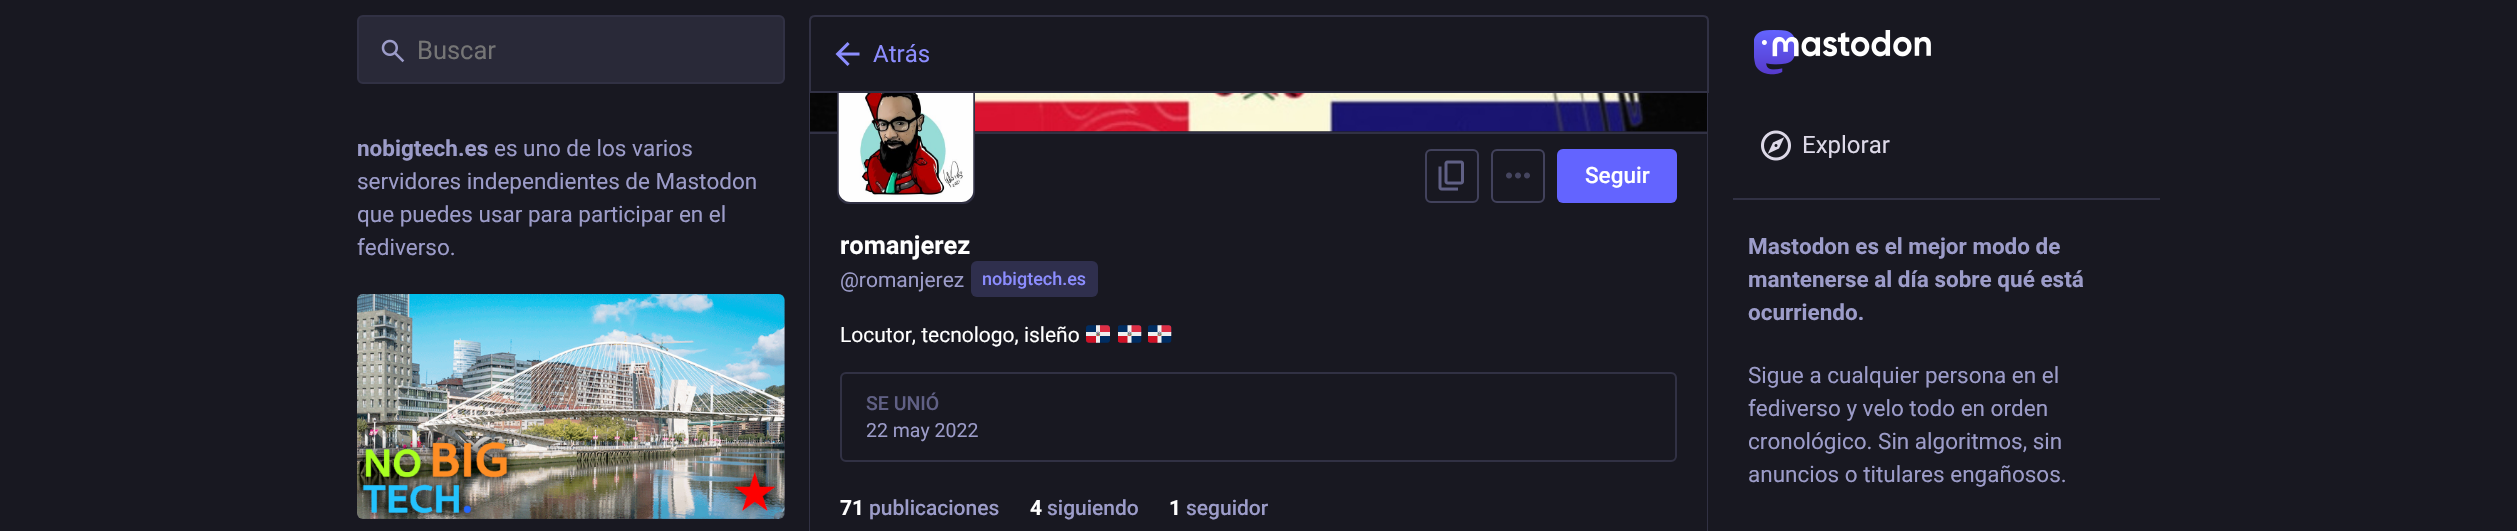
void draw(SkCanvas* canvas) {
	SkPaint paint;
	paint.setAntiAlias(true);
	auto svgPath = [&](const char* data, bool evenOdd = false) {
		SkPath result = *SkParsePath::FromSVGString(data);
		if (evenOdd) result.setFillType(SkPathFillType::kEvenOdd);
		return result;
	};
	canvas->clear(0xff181821);
	paint.setColor(0xff292938);
	canvas->drawRoundRect(SkRect::MakeXYWH(358, 16, 426, 67), 5, 5, paint);
	paint.setStroke(true);
	paint.setStrokeWidth(2);
	paint.setColor(0xff313144);
	canvas->drawRoundRect(SkRect::MakeXYWH(358, 16, 426, 67), 5, 5, paint);
	canvas->drawImageRect(SkImages::DeferredFromEncodedData(SkData::MakeFromFileName("img1.png")), SkRect::MakeXYWH(381, 39, 24, 24), SkSamplingOptions());
	SkFont f1(fontMgr->matchFamilyStyle("Roboto", SkFontStyle::Normal()), 25.5);
	f1.setSubpixel(true);
	paint.setStroke(false);
	paint.setColor(0xff757575);
	canvas->drawString("Buscar", 417, 59, f1, paint);
	SkFont f2(fontMgr->matchFamilyStyle("Roboto", SkFontStyle::Bold()), 22.5);
	f2.setSubpixel(true);
	paint.setColor(0xff9c9cc9);
	canvas->drawString("nobigtech.es", 357, 156, f2, paint);
	SkFont f3(fontMgr->matchFamilyStyle("Roboto", SkFontStyle::Normal()), 22.5);
	f3.setSubpixel(true);
	canvas->drawString("es uno de los varios", 494, 156, f3, paint);
	canvas->drawString("servidores independientes de Mastodon", 357, 189, f3, paint);
	canvas->drawString("que puedes usar para participar en el", 357, 222, f3, paint);
	canvas->drawString("fediverso.", 357, 255, f3, paint);
	paint.setColor(0xff292938);
	canvas->drawRoundRect(SkRect::MakeXYWH(357, 294, 428, 225), 6, 6, paint);
	canvas->drawImageRect(SkImages::DeferredFromEncodedData(SkData::MakeFromFileName("img2.png")), SkRect::MakeXYWH(357, 294, 428, 225), SkSamplingOptions());
	canvas->save();
	canvas->clipRect(SkRect::MakeXYWH(809, 0, 900, 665));
	paint.setColor(0xff313144);
	canvas->drawPath(svgPath("M808-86H1708V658C1708 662 1706 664 1702 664H814C811 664 808 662 808 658ZM810-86H1707V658C1707 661 1705 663 1702 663H814C812 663 810 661 810 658Z", true), paint);
	canvas->restore();
	paint.setColor(0xff20202c);
	canvas->drawRect(SkRect::MakeXYWH(810, 131, 897, 1), paint);
	paint.setColor(0xff313144);
	canvas->drawRect(SkRect::MakeXYWH(810, 132, 897, 2), paint);
	canvas->drawImageRect(SkImages::DeferredFromEncodedData(SkData::MakeFromFileName("img4.png")), SkRect::MakeXYWH(810, 93, 897, 39), SkSamplingOptions());
	paint.setColor(0xff181821);
	canvas->drawRoundRect(SkRect::MakeXYWH(838, 67, 136, 136), 11, 11, paint);
	paint.setStroke(true);
	paint.setColor(0xff313144);
	canvas->drawRoundRect(SkRect::MakeXYWH(838, 67, 136, 136), 11, 11, paint);
	paint.setStroke(false);
	paint.setColor(0xff181821);
	canvas->drawRect(SkRect::MakeXYWH(809, 0, 899, 91), paint);
	paint.setStroke(true);
	paint.setColor(0xff313144);
	canvas->drawPath(svgPath("M815 16H1703C1706 16 1708 18 1708 21V92H810V21C810 18 812 16 815 16Z"), paint);
	canvas->drawImageRect(SkImages::DeferredFromEncodedData(SkData::MakeFromFileName("img3.png")), SkRect::MakeXYWH(835, 42, 25, 24), SkSamplingOptions());
	SkFont f4(fontMgr->matchFamilyStyle("Roboto", SkFontStyle::Normal()), 24);
	f4.setSubpixel(true);
	paint.setStroke(false);
	paint.setColor(0xff8c8dff);
	canvas->drawString("Atrás", 873, 62, f4, paint);
	canvas->drawImageRect(SkImages::DeferredFromEncodedData(SkData::MakeFromFileName("img5.png")), SkRect::MakeXYWH(838, 93, 136, 109), SkSamplingOptions());
	paint.setStroke(true);
	paint.setColor(0xff42425c);
	canvas->drawRoundRect(SkRect::MakeXYWH(1426, 150, 52, 52), 5, 5, paint);
	canvas->drawImageRect(SkImages::DeferredFromEncodedData(SkData::MakeFromFileName("img6.png")), SkRect::MakeXYWH(1438, 160, 26, 31), SkSamplingOptions());
	canvas->drawRoundRect(SkRect::MakeXYWH(1492, 150, 52, 52), 5, 5, paint);
	canvas->drawImageRect(SkImages::DeferredFromEncodedData(SkData::MakeFromFileName("img7.png")), SkRect::MakeXYWH(1506, 172, 24, 7), SkSamplingOptions());
	paint.setStroke(false);
	paint.setColor(0xff6364ff);
	canvas->drawRoundRect(SkRect::MakeXYWH(1557, 149, 120, 54), 6, 6, paint);
	SkFont f5(fontMgr->matchFamilyStyle("Roboto", SkFontStyle(500, SkFontStyle::kNormal_Width, SkFontStyle::kUpright_Slant)), 22.5);
	f5.setSubpixel(true);
	paint.setColor(0xffffffff);
	canvas->drawString("Seguir", 1585, 183, f5, paint);
	SkFont f6(fontMgr->matchFamilyStyle("Roboto", SkFontStyle::Bold()), 25.5);
	f6.setSubpixel(true);
	canvas->drawString("romanjerez", 840, 254, f6, paint);
	SkFont f7(fontMgr->matchFamilyStyle("Roboto", SkFontStyle::Normal()), 21);
	f7.setSubpixel(true);
	paint.setColor(0xff9c9cc9);
	canvas->drawString("@romanjerez", 840, 287, f7, paint);
	paint.setColor(0xff2f2f4d);
	canvas->drawRoundRect(SkRect::MakeXYWH(971, 261, 127, 36), 6, 6, paint);
	SkFont f8(fontMgr->matchFamilyStyle("Roboto", SkFontStyle(500, SkFontStyle::kNormal_Width, SkFontStyle::kUpright_Slant)), 18);
	f8.setSubpixel(true);
	paint.setColor(0xff8c8dff);
	canvas->drawString("nobigtech.es", 982, 285, f8, paint);
	paint.setColor(0xffffffff);
	canvas->drawString("Locutor, tecnologo, isleño", 840, 342, f7, paint);
	canvas->drawImageRect(SkImages::DeferredFromEncodedData(SkData::MakeFromFileName("img8.png")), SkRect::MakeXYWH(1086, 325, 24, 18), SkSamplingOptions());
	canvas->drawImageRect(SkImages::DeferredFromEncodedData(SkData::MakeFromFileName("img9.png")), SkRect::MakeXYWH(1118, 325, 24, 18), SkSamplingOptions());
	canvas->drawImageRect(SkImages::DeferredFromEncodedData(SkData::MakeFromFileName("img9.png")), SkRect::MakeXYWH(1148, 325, 24, 18), SkSamplingOptions());
	paint.setStroke(true);
	paint.setColor(0xff313144);
	canvas->drawRoundRect(SkRect::MakeXYWH(841, 373, 835, 88), 5, 5, paint);
	SkFont f9(fontMgr->matchFamilyStyle("Roboto", SkFontStyle(500, SkFontStyle::kNormal_Width, SkFontStyle::kUpright_Slant)), 19.5);
	f9.setSubpixel(true);
	paint.setStroke(false);
	paint.setColor(0xff606085);
	canvas->drawString("SE UNIÓ", 866, 410, f9, paint);
	SkFont f10(fontMgr->matchFamilyStyle("Roboto", SkFontStyle::Normal()), 19.5);
	f10.setSubpixel(true);
	paint.setColor(0xff9c9cc9);
	canvas->drawString("22 may 2022", 866, 437, f10, paint);
	SkFont f11(fontMgr->matchFamilyStyle("Roboto", SkFontStyle::Bold()), 21);
	f11.setSubpixel(true);
	paint.setColor(0xffffffff);
	canvas->drawString("71", 840, 515, f11, paint);
	SkFont f12(fontMgr->matchFamilyStyle("Roboto", SkFontStyle(500, SkFontStyle::kNormal_Width, SkFontStyle::kUpright_Slant)), 21);
	f12.setSubpixel(true);
	paint.setColor(0xff9c9cc9);
	canvas->drawString("publicaciones", 869, 515, f12, paint);
	paint.setColor(0xffffffff);
	canvas->drawString("4", 1030, 515, f11, paint);
	paint.setColor(0xff9c9cc9);
	canvas->drawString("siguiendo", 1047, 515, f12, paint);
	paint.setColor(0xffffffff);
	canvas->drawString("1", 1169, 515, f11, paint);
	paint.setColor(0xff9c9cc9);
	canvas->drawString("seguidor", 1186, 515, f12, paint);
	canvas->drawImageRect(SkImages::DeferredFromEncodedData(SkData::MakeFromFileName("img10.png")), SkRect::MakeXYWH(1754, 30, 177, 45), SkSamplingOptions());
	canvas->drawImageRect(SkImages::DeferredFromEncodedData(SkData::MakeFromFileName("img11.png")), SkRect::MakeXYWH(1761, 130, 30, 31), SkSamplingOptions());
	paint.setColor(0xffddd9e8);
	canvas->drawString("Explorar", 1802, 153, f4, paint);
	paint.setColor(0xff313144);
	canvas->drawRect(SkRect::MakeXYWH(1733, 198, 427, 2), paint);
	paint.setColor(0xff9c9cc9);
	canvas->drawString("Mastodon es el mejor modo de", 1748, 254, f2, paint);
	canvas->drawString("mantenerse al día sobre qué está", 1748, 287, f2, paint);
	canvas->drawString("ocurriendo.", 1748, 320, f2, paint);
	canvas->drawString("Sigue a cualquier persona en el", 1748, 383, f3, paint);
	canvas->drawString("fediverso y velo todo en orden", 1748, 416, f3, paint);
	canvas->drawString("cronológico. Sin algoritmos, sin", 1748, 449, f3, paint);
	canvas->drawString("anuncios o titulares engañosos.", 1748, 482, f3, paint);
}
